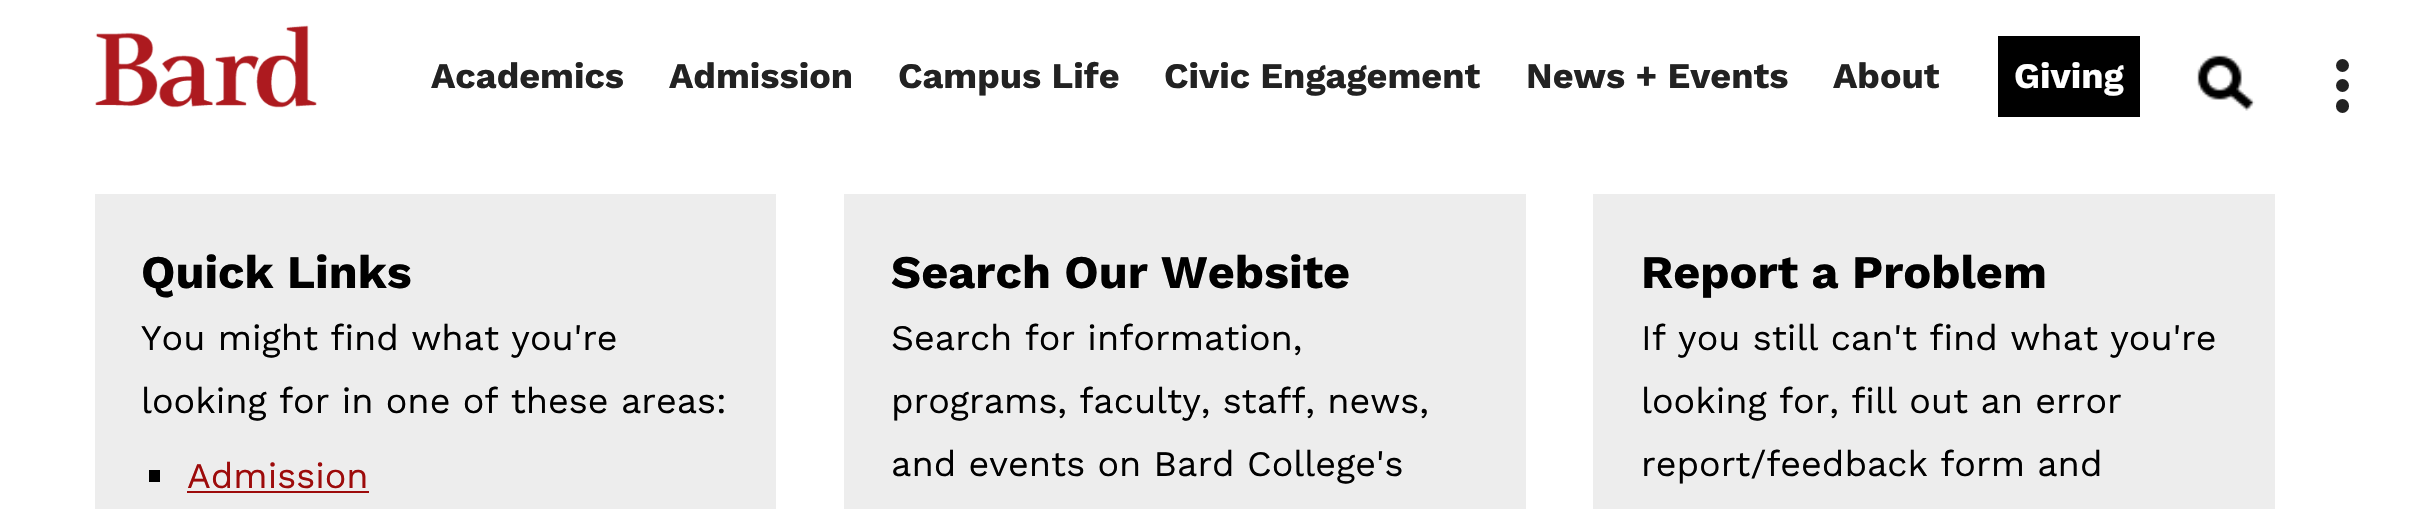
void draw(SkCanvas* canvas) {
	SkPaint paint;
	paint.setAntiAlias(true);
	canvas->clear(0xffffffff);
	canvas->drawImageRect(SkImages::DeferredFromEncodedData(SkData::MakeFromFileName("img1.png")), SkRect::MakeXYWH(95, 25, 222, 83), SkSamplingOptions());
	SkFont f1(fontMgr->matchFamilyStyle("Work Sans", SkFontStyle::Bold()), 36);
	f1.setSubpixel(true);
	paint.setColor(0xff222222);
	canvas->drawString("Academics", 431, 88, f1, paint);
	canvas->drawString("Admission", 669, 88, f1, paint);
	canvas->drawString("Campus Life", 898, 88, f1, paint);
	canvas->drawString("Civic Engagement", 1164, 88, f1, paint);
	canvas->drawString("News + Events", 1526, 88, f1, paint);
	canvas->drawString("About", 1833, 88, f1, paint);
	paint.setColor(0xff000000);
	canvas->drawRect(SkRect::MakeXYWH(1998, 36, 142, 81), paint);
	paint.setColor(0xffffffff);
	canvas->drawString("Giving", 2014, 88, f1, paint);
	canvas->drawImageRect(SkImages::DeferredFromEncodedData(SkData::MakeFromFileName("img2.png")), SkRect::MakeXYWH(2197, 55, 58, 56), SkSamplingOptions());
	paint.setColor(0xff222222);
	canvas->drawCircle(2342.5, 65.5, 6.5, paint);
	canvas->drawCircle(2342.5, 85.5, 6.5, paint);
	canvas->drawRoundRect(SkRect::MakeXYWH(2336, 99, 13, 14), 6.5, 6.5, paint);
	paint.setColor(0xffededed);
	canvas->drawRect(SkRect::MakeXYWH(95, 194, 681, 315), paint);
	SkFont f2(fontMgr->matchFamilyStyle("Work Sans", SkFontStyle::Bold()), 46.75);
	f2.setSubpixel(true);
	paint.setColor(0xff000000);
	canvas->drawString("Quick Links", 141, 288, f2, paint);
	SkFont f3(fontMgr->matchFamilyStyle("Work Sans", SkFontStyle::Normal()), 36);
	f3.setSubpixel(true);
	canvas->drawString("You might find what you're", 141, 350, f3, paint);
	canvas->drawString("looking for in one of these areas:", 141, 413, f3, paint);
	canvas->drawRect(SkRect::MakeXYWH(149, 470, 11, 12), paint);
	paint.setColor(0xff9d0b0b);
	canvas->drawString("Admission", 187, 488, f3, paint);
	canvas->drawRect(SkRect::MakeXYWH(187, 491, 182, 2), paint);
	paint.setColor(0xffededed);
	canvas->drawRect(SkRect::MakeXYWH(844, 194, 682, 315), paint);
	paint.setColor(0xff000000);
	canvas->drawString("Search Our Website", 891, 288, f2, paint);
	canvas->drawString("Search for information,", 891, 350, f3, paint);
	canvas->drawString("programs, faculty, staff, news,", 891, 413, f3, paint);
	canvas->drawString("and events on Bard College's", 891, 476, f3, paint);
	paint.setColor(0xffededed);
	canvas->drawRect(SkRect::MakeXYWH(1593, 194, 682, 315), paint);
	paint.setColor(0xff000000);
	canvas->drawString("Report a Problem", 1641, 288, f2, paint);
	canvas->drawString("If you still can't find what you're", 1641, 350, f3, paint);
	canvas->drawString("looking for, fill out an error", 1641, 413, f3, paint);
	canvas->drawString("report/feedback form and", 1641, 476, f3, paint);
}
